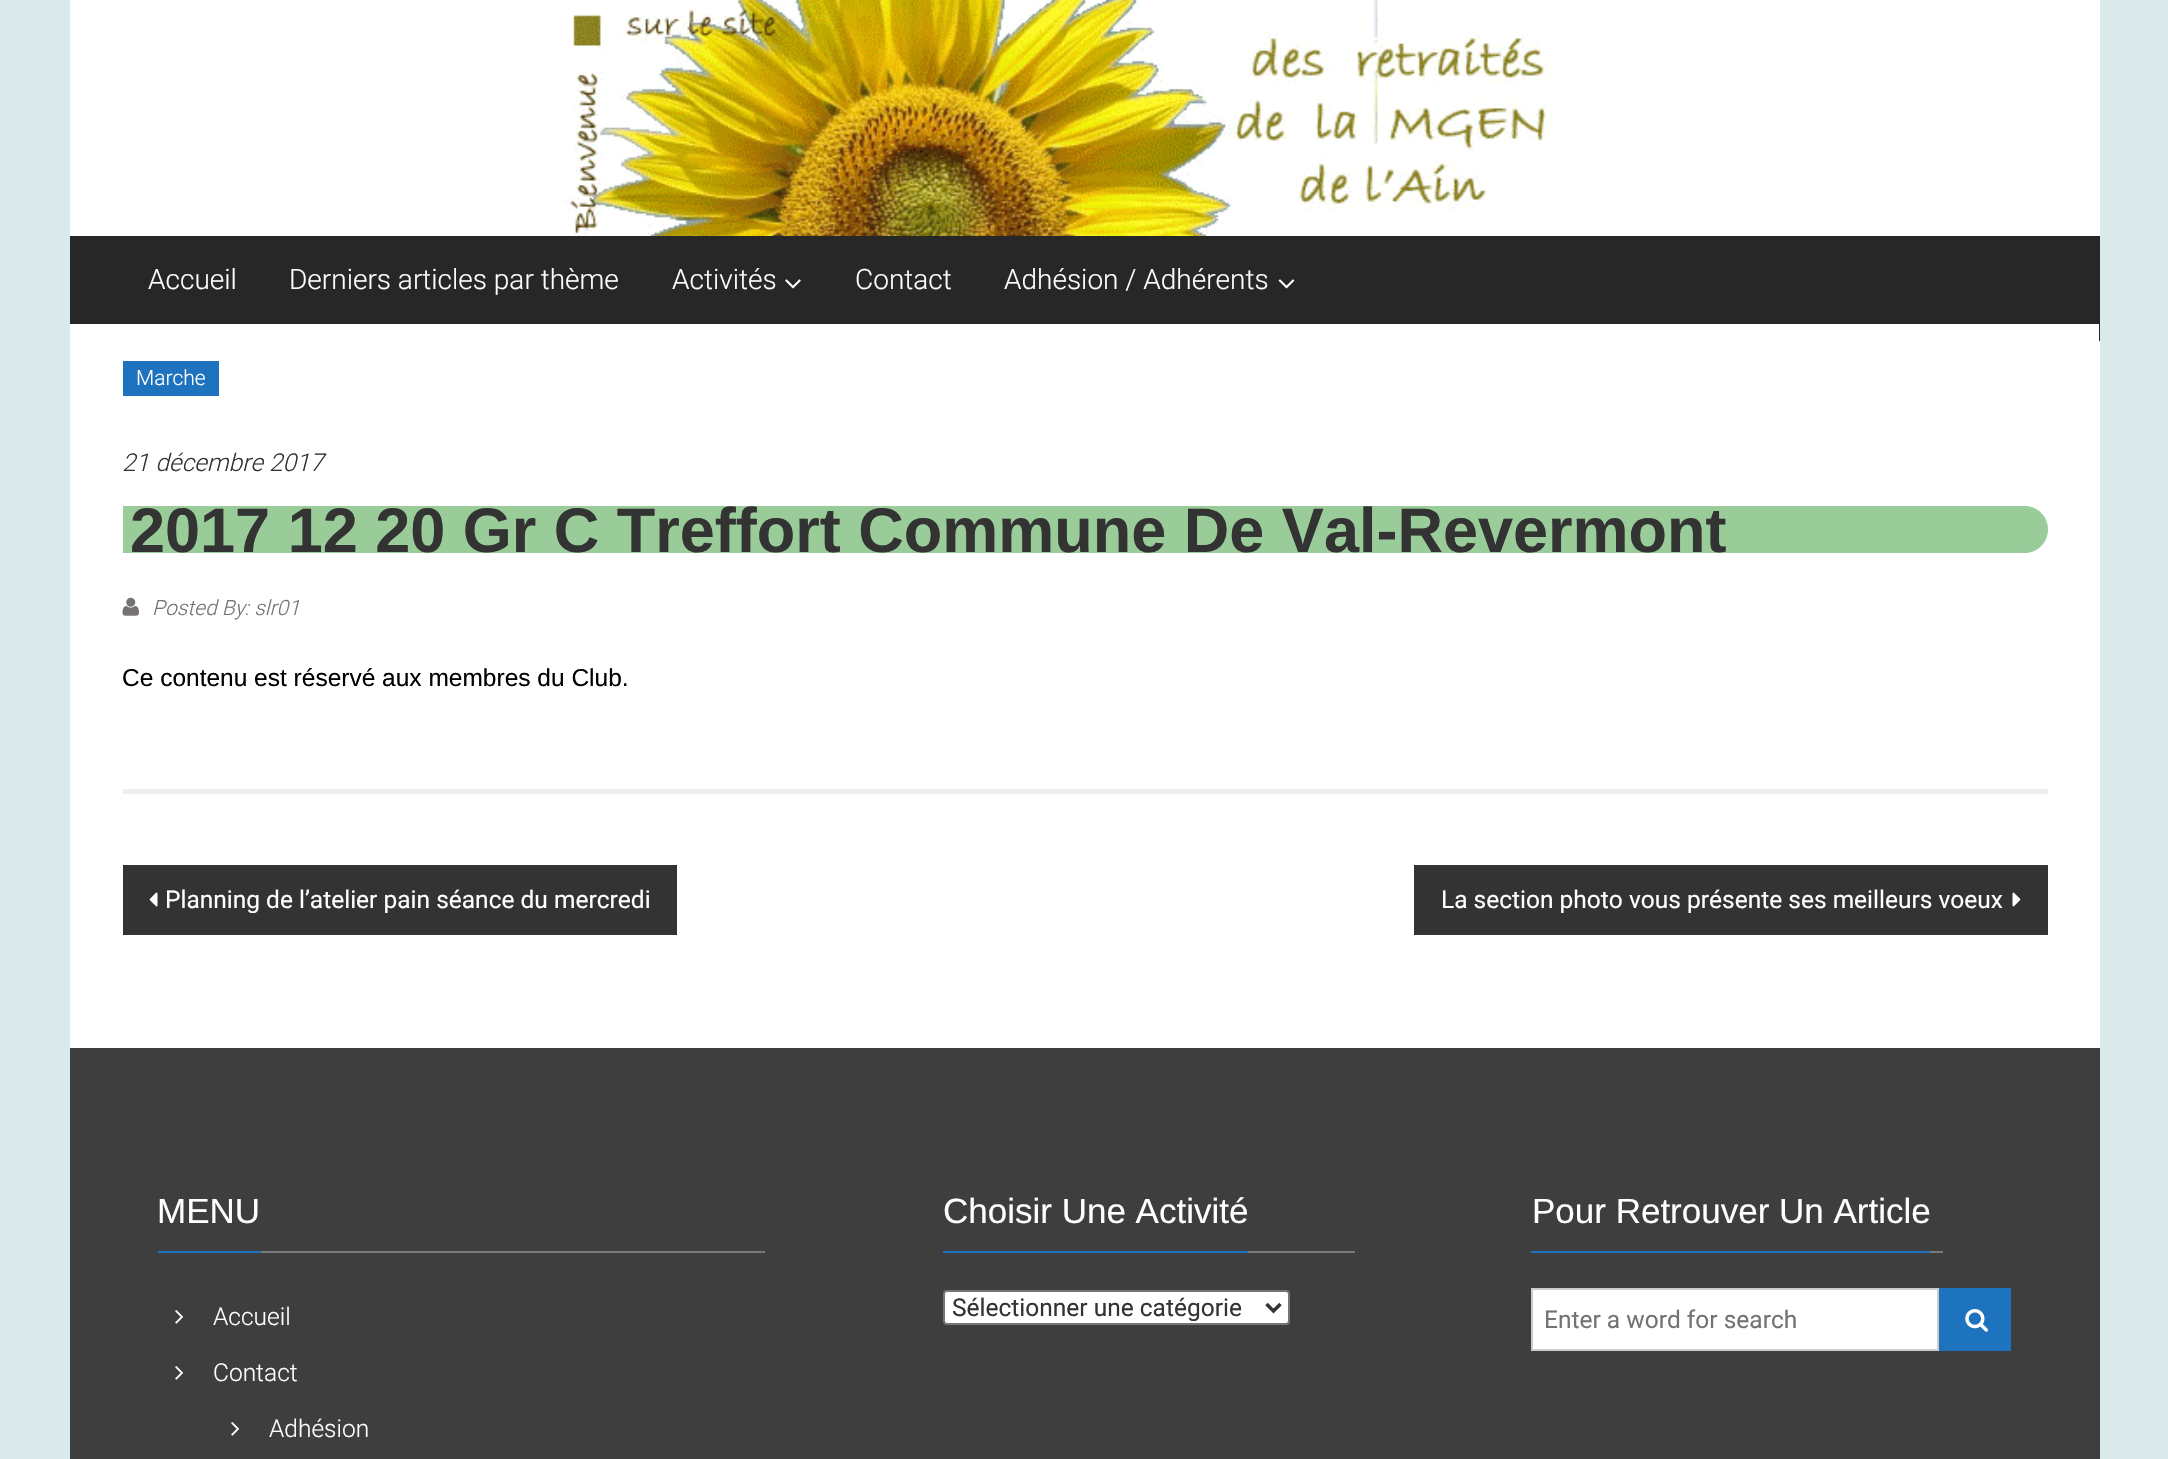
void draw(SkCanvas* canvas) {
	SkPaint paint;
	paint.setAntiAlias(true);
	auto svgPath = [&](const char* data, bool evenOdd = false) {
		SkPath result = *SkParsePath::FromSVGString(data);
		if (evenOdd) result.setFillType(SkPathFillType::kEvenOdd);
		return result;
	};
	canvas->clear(0xffdae9ea);
	paint.setColor(0xffffffff);
	canvas->drawRect(SkRect::MakeXYWH(70, 0, 2030, 1048), paint);
	canvas->drawImageRect(SkImages::DeferredFromEncodedData(SkData::MakeFromFileName("img1.png")), SkRect::MakeXYWH(560, 0, 993, 236), SkSamplingOptions());
	paint.setColor(0xff272727);
	canvas->drawRect(SkRect::MakeXYWH(70, 236, 2030, 88), paint);
	SkFont f1(fontMgr->matchFamilyStyle("Roboto", SkFontStyle(300, SkFontStyle::kNormal_Width, SkFontStyle::kUpright_Slant)), 28);
	f1.setSubpixel(true);
	paint.setColor(0xffffffff);
	canvas->drawString("Accueil", 148, 289, f1, paint);
	canvas->drawString("Derniers articles par thème", 289, 289, f1, paint);
	canvas->drawString("Activités", 672, 289, f1, paint);
	canvas->drawImageRect(SkImages::DeferredFromEncodedData(SkData::MakeFromFileName("img2.png")), SkRect::MakeXYWH(785, 279, 16, 10), SkSamplingOptions());
	canvas->drawString("Contact", 855, 289, f1, paint);
	canvas->drawString("Adhésion / Adhérents", 1004, 289, f1, paint);
	canvas->drawImageRect(SkImages::DeferredFromEncodedData(SkData::MakeFromFileName("img3.png")), SkRect::MakeXYWH(1278, 279, 17, 10), SkSamplingOptions());
	canvas->save();
	canvas->clipRect(SkRect::MakeXYWH(70, 0, 2030, 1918));
	paint.setColor(0xff272727);
	canvas->drawPath(svgPath("M2099 341.5V306.5L2116.5 324Z"), paint);
	canvas->restore();
	paint.setColor(0xffeeeeee);
	canvas->drawRect(SkRect::MakeXYWH(123, 789, 1925, 5), paint);
	paint.setColor(0xff1e73be);
	canvas->drawRect(SkRect::MakeXYWH(123, 361, 96, 35), paint);
	SkFont f2(fontMgr->matchFamilyStyle("Roboto", SkFontStyle(300, SkFontStyle::kNormal_Width, SkFontStyle::kUpright_Slant)), 21);
	f2.setSubpixel(true);
	paint.setColor(0xffffffff);
	canvas->drawString("Marche", 136, 385, f2, paint);
	SkFont f3(fontMgr->matchFamilyStyle("Roboto", SkFontStyle(300, SkFontStyle::kNormal_Width, SkFontStyle::kItalic_Slant)), 24.5);
	f3.setSubpixel(true);
	paint.setColor(0xff333333);
	canvas->drawString("21 décembre 2017", 122, 471, f3, paint);
	paint.setColor(0xff99cc99);
	canvas->drawPath(svgPath("M123 506H2024.5C2037.5 506 2048 516.5 2048 529.5C2048 542.5 2037.5 553 2024.5 553H123Z"), paint);
	SkFont f4(fontMgr->matchFamilyStyle("Liberation Sans", SkFontStyle::Bold()), 63);
	f4.setSubpixel(true);
	paint.setColor(0xff333333);
	canvas->drawString("2017 12 20 Gr C Treffort Commune De Val-Revermont", 130, 552, f4, paint);
	canvas->drawImageRect(SkImages::DeferredFromEncodedData(SkData::MakeFromFileName("img4.png")), SkRect::MakeXYWH(122, 597, 17, 19), SkSamplingOptions());
	SkFont f5(fontMgr->matchFamilyStyle("Roboto", SkFontStyle(300, SkFontStyle::kNormal_Width, SkFontStyle::kItalic_Slant)), 21);
	f5.setSubpixel(true);
	paint.setColor(0xff767272);
	canvas->drawString("Posted By: slr01", 152, 615, f5, paint);
	SkFont f6(fontMgr->matchFamilyStyle("Liberation Sans", SkFontStyle::Normal()), 24.5);
	f6.setSubpixel(true);
	paint.setColor(0xff000000);
	canvas->drawString("Ce contenu est réservé aux membres du Club.", 122, 686, f6, paint);
	paint.setColor(0xff333333);
	canvas->drawRect(SkRect::MakeXYWH(123, 865, 554, 70), paint);
	canvas->drawImageRect(SkImages::DeferredFromEncodedData(SkData::MakeFromFileName("img5.png")), SkRect::MakeXYWH(149, 892, 9, 15), SkSamplingOptions());
	SkFont f7(fontMgr->matchFamilyStyle("Roboto", SkFontStyle::Normal()), 24.5);
	f7.setSubpixel(true);
	paint.setColor(0xffffffff);
	canvas->drawString("Planning de l’atelier pain séance du mercredi", 165, 908, f7, paint);
	paint.setColor(0xff333333);
	canvas->drawRect(SkRect::MakeXYWH(1414, 865, 634, 70), paint);
	paint.setColor(0xffffffff);
	canvas->drawString("La section photo vous présente ses meilleurs voeux", 1441, 908, f7, paint);
	canvas->drawImageRect(SkImages::DeferredFromEncodedData(SkData::MakeFromFileName("img6.png")), SkRect::MakeXYWH(2012, 892, 9, 15), SkSamplingOptions());
	paint.setColor(0xff3e3e3e);
	canvas->drawRect(SkRect::MakeXYWH(70, 1048, 2030, 411), paint);
	paint.setColor(0xff787878);
	canvas->drawRect(SkRect::MakeXYWH(261, 1251, 504, 2), paint);
	paint.setColor(0xff1e73be);
	canvas->drawRect(SkRect::MakeXYWH(158, 1251, 103, 2), paint);
	SkFont f8(fontMgr->matchFamilyStyle("Liberation Sans", SkFontStyle::Normal()), 35);
	f8.setSubpixel(true);
	paint.setColor(0xffffffff);
	canvas->drawString("MENU", 157, 1223, f8, paint);
	canvas->drawImageRect(SkImages::DeferredFromEncodedData(SkData::MakeFromFileName("img7.png")), SkRect::MakeXYWH(175, 1310, 9, 14), SkSamplingOptions());
	SkFont f9(fontMgr->matchFamilyStyle("Roboto", SkFontStyle(300, SkFontStyle::kNormal_Width, SkFontStyle::kUpright_Slant)), 24.5);
	f9.setSubpixel(true);
	canvas->drawString("Accueil", 213, 1325, f9, paint);
	canvas->drawImageRect(SkImages::DeferredFromEncodedData(SkData::MakeFromFileName("img7.png")), SkRect::MakeXYWH(175, 1366, 9, 14), SkSamplingOptions());
	canvas->drawString("Contact", 213, 1381, f9, paint);
	canvas->drawImageRect(SkImages::DeferredFromEncodedData(SkData::MakeFromFileName("img7.png")), SkRect::MakeXYWH(231, 1422, 9, 14), SkSamplingOptions());
	canvas->drawString("Adhésion", 269, 1437, f9, paint);
	paint.setColor(0xff787878);
	canvas->drawRect(SkRect::MakeXYWH(1248, 1251, 107, 2), paint);
	paint.setColor(0xff1e73be);
	canvas->drawRect(SkRect::MakeXYWH(943, 1251, 305, 2), paint);
	paint.setColor(0xffffffff);
	canvas->drawString("Choisir Une Activité", 943, 1223, f8, paint);
	canvas->drawRoundRect(SkRect::MakeXYWH(944, 1291, 345, 33), 3, 3, paint);
	paint.setStroke(true);
	paint.setStrokeWidth(2);
	paint.setColor(0xff767676);
	canvas->drawRoundRect(SkRect::MakeXYWH(944, 1291, 345, 33), 3, 3, paint);
	paint.setStrokeWidth(3.5);
	paint.setColor(0xff333333);
	canvas->drawPath(svgPath("M1266.5 1304L1273.5 1311L1280.5 1304"), paint);
	paint.setStroke(false);
	canvas->drawString("Sélectionner une catégorie", 952, 1316, f7, paint);
	paint.setColor(0xff787878);
	canvas->drawRect(SkRect::MakeXYWH(1930, 1251, 13, 2), paint);
	paint.setColor(0xff1e73be);
	canvas->drawRect(SkRect::MakeXYWH(1531, 1251, 399, 2), paint);
	paint.setColor(0xffffffff);
	canvas->drawString("Pour Retrouver Un Article", 1532, 1223, f8, paint);
	canvas->drawRect(SkRect::MakeXYWH(1532, 1289, 406, 61), paint);
	paint.setStroke(true);
	paint.setStrokeWidth(2);
	paint.setColor(0xffcccccc);
	canvas->drawRect(SkRect::MakeXYWH(1532, 1289, 406, 61), paint);
	paint.setStroke(false);
	paint.setColor(0xff767272);
	canvas->drawString("Enter a word for search", 1544, 1328, f7, paint);
	paint.setColor(0xff1e73be);
	canvas->drawRect(SkRect::MakeXYWH(1939, 1288, 72, 63), paint);
	canvas->drawImageRect(SkImages::DeferredFromEncodedData(SkData::MakeFromFileName("img8.png")), SkRect::MakeXYWH(1965, 1309, 23, 23), SkSamplingOptions());
}
